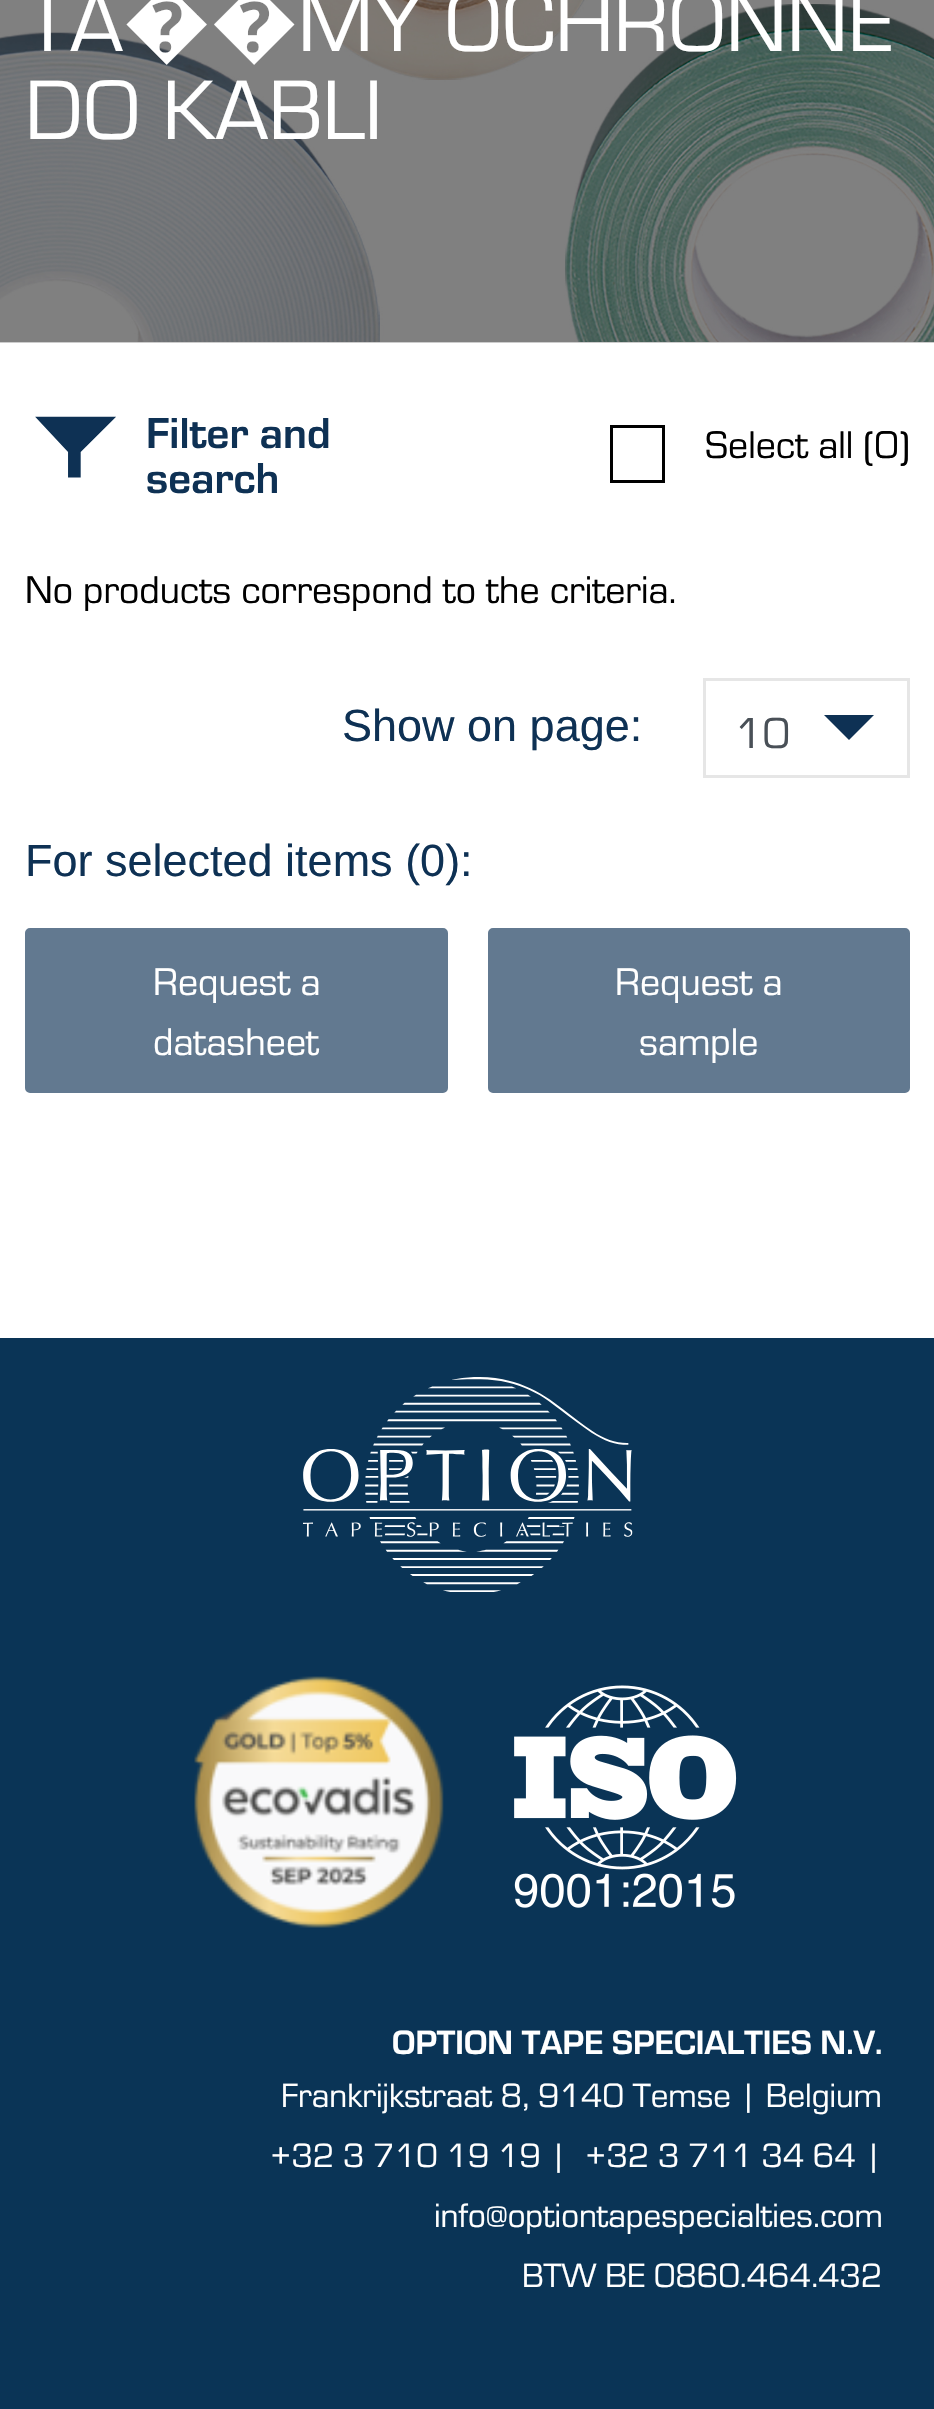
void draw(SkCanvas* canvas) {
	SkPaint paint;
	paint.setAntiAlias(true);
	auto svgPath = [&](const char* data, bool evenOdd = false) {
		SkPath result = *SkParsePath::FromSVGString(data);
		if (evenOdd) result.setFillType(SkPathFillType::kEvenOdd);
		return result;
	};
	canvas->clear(0xffffffff);
	paint.setColor(0xffcccccc);
	canvas->drawRect(SkRect::MakeXYWH(0, 342, 934, 1), paint);
	canvas->drawImageRect(SkImages::DeferredFromEncodedData(SkData::MakeFromFileName("img1.png")), SkRect::MakeXYWH(0, 0, 934, 342), SkSamplingOptions());
	SkFont f1(fontMgr->matchFamilyStyle("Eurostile", SkFontStyle::Normal()), 87.5);
	f1.setSubpixel(true);
	paint.setColor(0xffffffff);
	canvas->drawString("TA", 25, 51, f1, paint);
	SkFont f2(fontMgr->matchFamilyStyle("Noto Sans", SkFontStyle::Normal()), 87.5);
	f2.setSubpixel(true);
	canvas->drawString("��", 123, 51, f2, paint);
	canvas->drawString("MY OCHRONNE", 298, 51, f1, paint);
	canvas->drawString("DO KABLI", 25, 139, f1, paint);
	canvas->drawImageRect(SkImages::DeferredFromEncodedData(SkData::MakeFromFileName("img2.png")), SkRect::MakeXYWH(35, 416, 81, 62), SkSamplingOptions());
	SkFont f3(fontMgr->matchFamilyStyle("Eurostile", SkFontStyle::Bold()), 45);
	f3.setSubpixel(true);
	paint.setColor(0xff0e3154);
	canvas->drawString("Filter and", 146, 448, f3, paint);
	canvas->drawString("search", 146, 493, f3, paint);
	paint.setStroke(true);
	paint.setStrokeWidth(3);
	paint.setColor(0xff000000);
	canvas->drawRect(SkRect::MakeXYWH(611.5, 426.5, 52, 55), paint);
	SkFont f4(fontMgr->matchFamilyStyle("Eurostile", SkFontStyle::Normal()), 40);
	f4.setSubpixel(true);
	paint.setStroke(false);
	canvas->drawString("Select all (0)", 705, 458, f4, paint);
	canvas->drawString("No products correspond to the criteria.", 25, 603, f4, paint);
	SkFont f5(fontMgr->matchFamilyStyle("Liberation Sans", SkFontStyle::Normal()), 45);
	f5.setSubpixel(true);
	paint.setColor(0xff0e3154);
	canvas->drawString("Show on page:", 342, 741, f5, paint);
	canvas->drawPath(svgPath("M874 715H824L849 740Z"), paint);
	paint.setStroke(true);
	paint.setColor(0xffe6e6e6);
	canvas->drawRect(SkRect::MakeXYWH(704.5, 679.5, 204, 97), paint);
	SkFont f6(fontMgr->matchFamilyStyle("Eurostile", SkFontStyle::Normal()), 45);
	f6.setSubpixel(true);
	paint.setStroke(false);
	paint.setColor(0xff495057);
	canvas->drawString("10", 735, 748, f6, paint);
	paint.setColor(0xff0e3154);
	canvas->drawString("For selected items (0):", 25, 876, f5, paint);
	paint.setColor(0xff627990);
	canvas->drawRoundRect(SkRect::MakeXYWH(26.5, 929.5, 420, 162), 3.5, 3.5, paint);
	paint.setStroke(true);
	canvas->drawRoundRect(SkRect::MakeXYWH(26.5, 929.5, 420, 162), 3.5, 3.5, paint);
	paint.setStroke(false);
	paint.setColor(0xffffffff);
	canvas->drawString("Request a", 153, 995, f4, paint);
	canvas->drawString("datasheet", 153, 1055, f4, paint);
	paint.setColor(0xff627990);
	canvas->drawRoundRect(SkRect::MakeXYWH(489.5, 929.5, 419, 162), 3.5, 3.5, paint);
	paint.setStroke(true);
	canvas->drawRoundRect(SkRect::MakeXYWH(489.5, 929.5, 419, 162), 3.5, 3.5, paint);
	paint.setStroke(false);
	paint.setColor(0xffffffff);
	canvas->drawString("Request a", 615, 995, f4, paint);
	canvas->drawString("sample", 639, 1055, f4, paint);
	paint.setColor(0xff0a3456);
	canvas->drawRect(SkRect::MakeXYWH(0, 1338, 934, 1071), paint);
	canvas->drawImageRect(SkImages::DeferredFromEncodedData(SkData::MakeFromFileName("img3.png")), SkRect::MakeXYWH(303, 1377, 330, 215), SkSamplingOptions());
	canvas->drawImageRect(SkImages::DeferredFromEncodedData(SkData::MakeFromFileName("img4.png")), SkRect::MakeXYWH(194, 1676, 250, 252), SkSamplingOptions());
	canvas->drawImageRect(SkImages::DeferredFromEncodedData(SkData::MakeFromFileName("img5.png")), SkRect::MakeXYWH(514, 1685, 223, 223), SkSamplingOptions());
	SkFont f7(fontMgr->matchFamilyStyle("Eurostile", SkFontStyle::Bold()), 35);
	f7.setSubpixel(true);
	paint.setColor(0xffffffff);
	canvas->drawString("OPTION TAPE SPECIALTIES N.V.", 392, 2054, f7, paint);
	SkFont f8(fontMgr->matchFamilyStyle("Eurostile", SkFontStyle::Normal()), 35);
	f8.setSubpixel(true);
	canvas->drawString("Frankrijkstraat 8, 9140 Temse | Belgium", 281, 2107, f8, paint);
	canvas->drawString("+32 3 710 19 19 |", 270, 2167, f8, paint);
	canvas->drawString("+32 3 711 34 64 |", 585, 2167, f8, paint);
	canvas->drawString("info@optiontapespecialties.com", 434, 2227, f8, paint);
	canvas->drawString("BTW BE 0860.464.432", 522, 2287, f8, paint);
}
